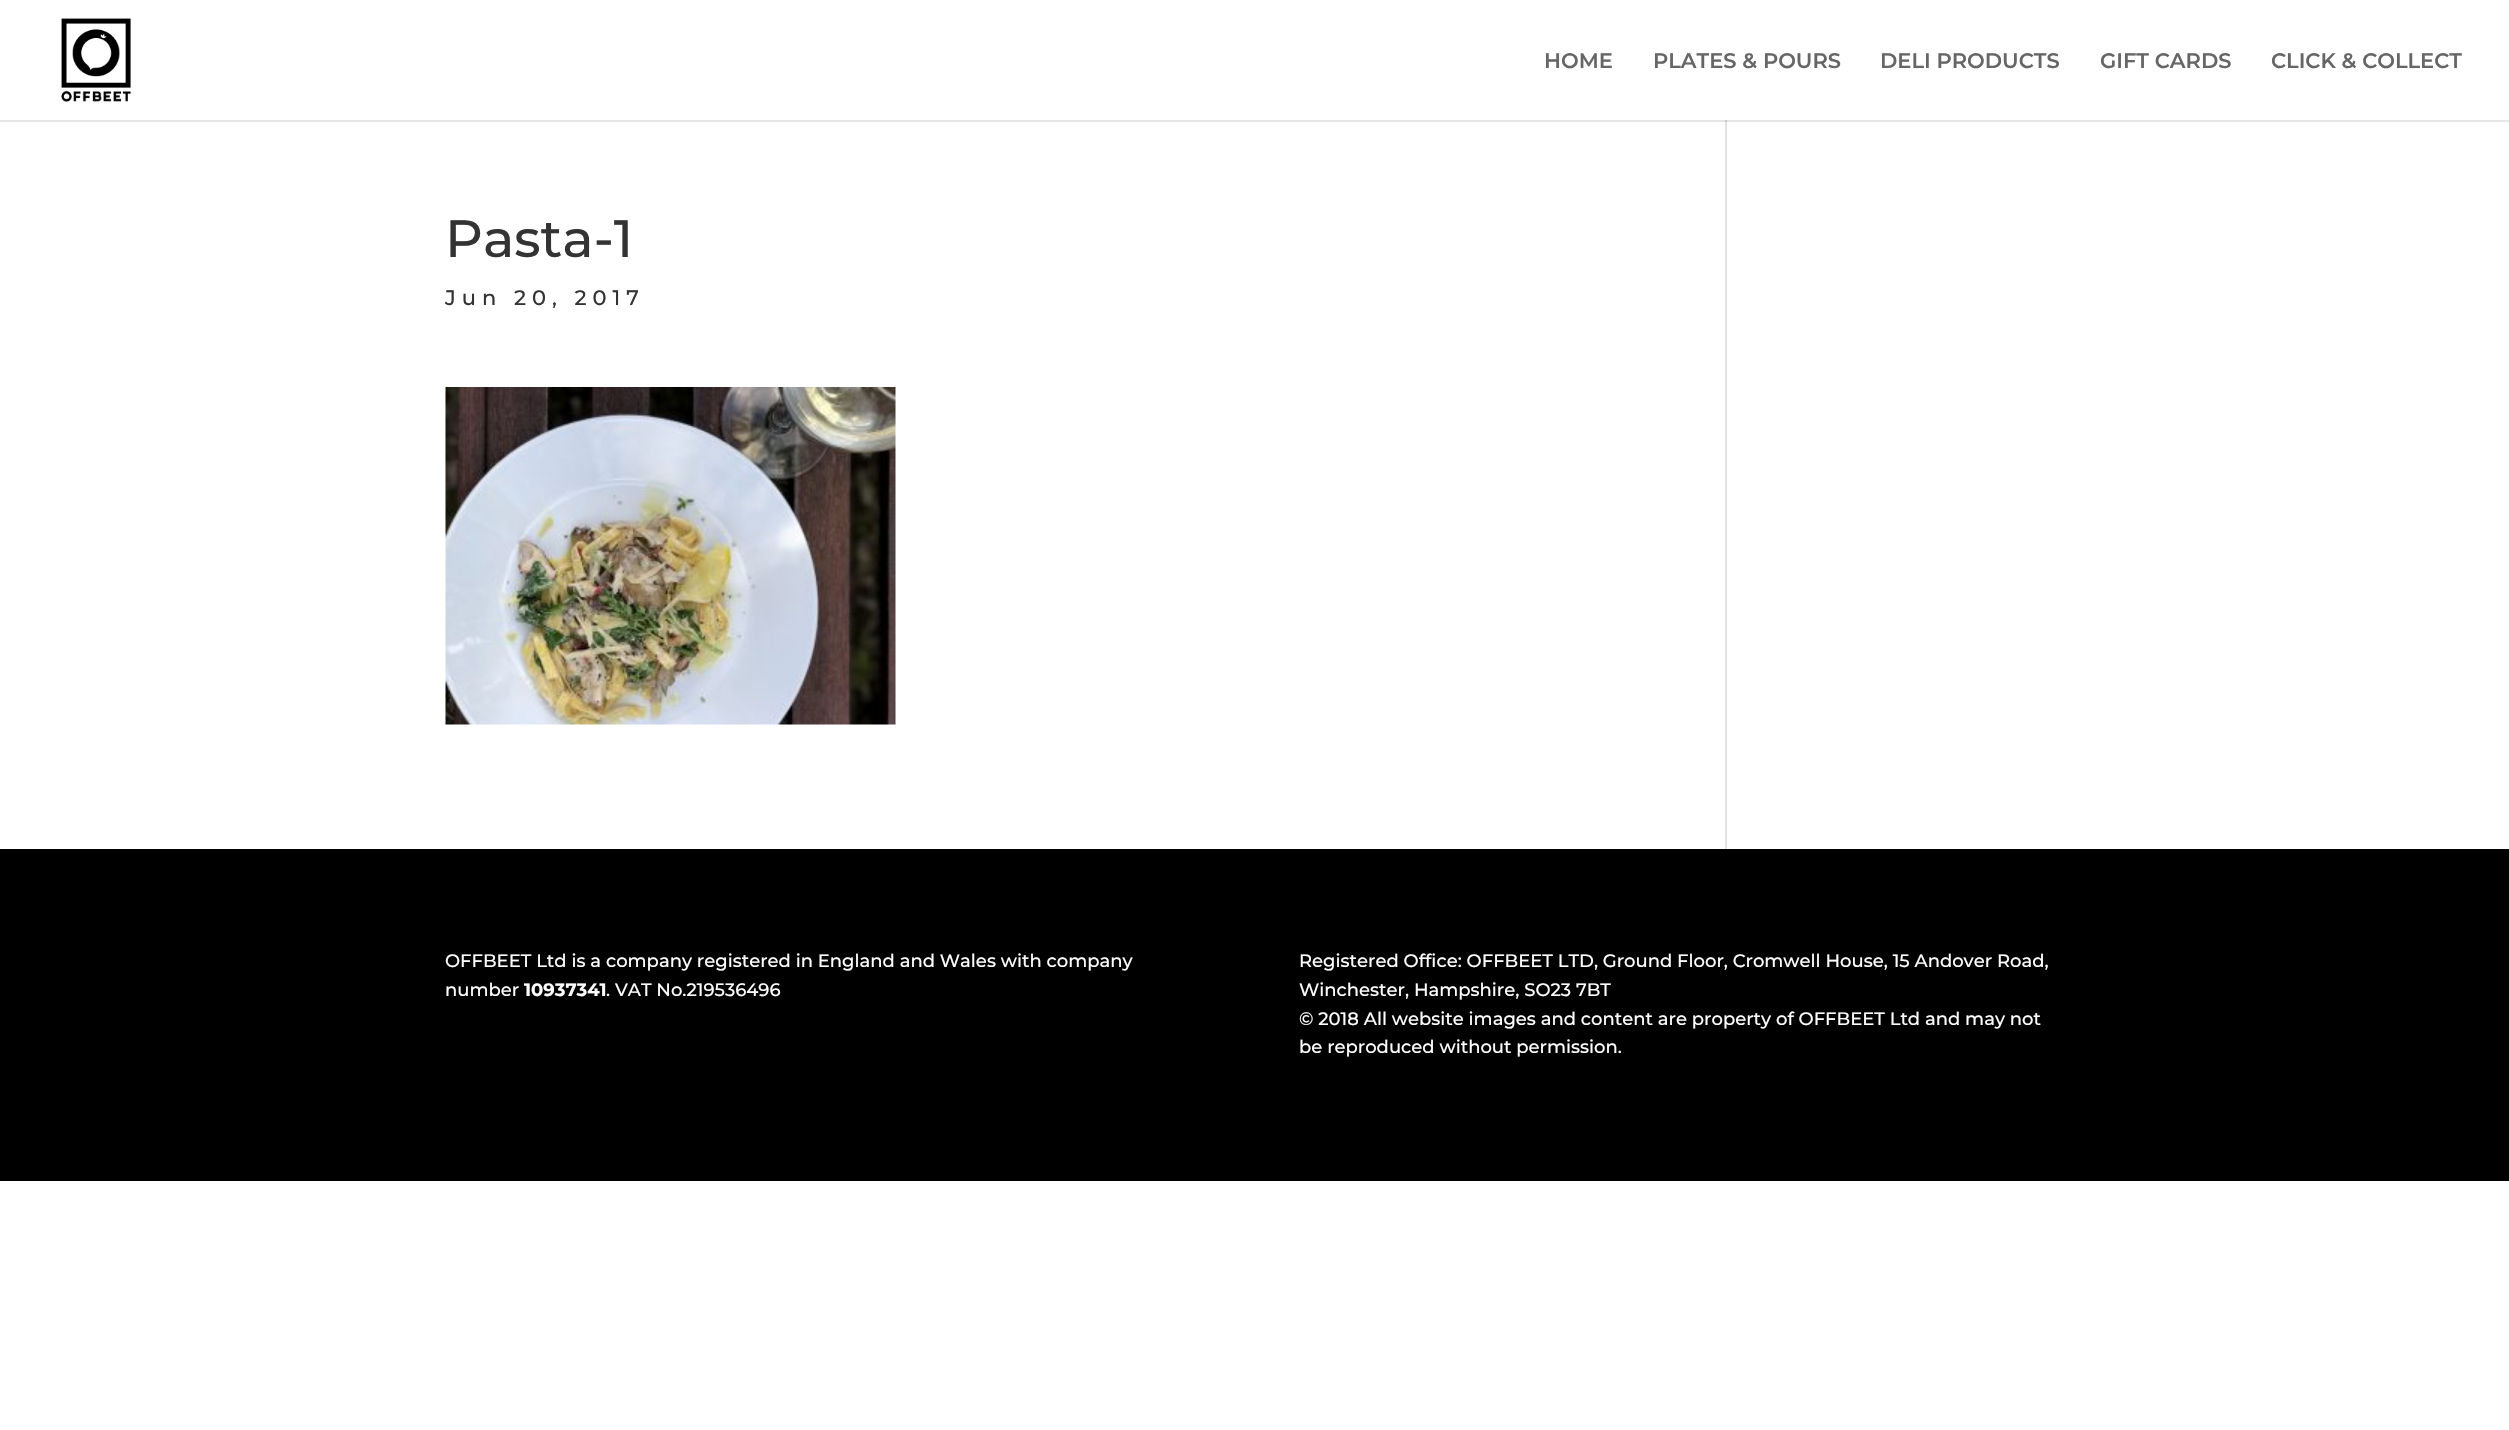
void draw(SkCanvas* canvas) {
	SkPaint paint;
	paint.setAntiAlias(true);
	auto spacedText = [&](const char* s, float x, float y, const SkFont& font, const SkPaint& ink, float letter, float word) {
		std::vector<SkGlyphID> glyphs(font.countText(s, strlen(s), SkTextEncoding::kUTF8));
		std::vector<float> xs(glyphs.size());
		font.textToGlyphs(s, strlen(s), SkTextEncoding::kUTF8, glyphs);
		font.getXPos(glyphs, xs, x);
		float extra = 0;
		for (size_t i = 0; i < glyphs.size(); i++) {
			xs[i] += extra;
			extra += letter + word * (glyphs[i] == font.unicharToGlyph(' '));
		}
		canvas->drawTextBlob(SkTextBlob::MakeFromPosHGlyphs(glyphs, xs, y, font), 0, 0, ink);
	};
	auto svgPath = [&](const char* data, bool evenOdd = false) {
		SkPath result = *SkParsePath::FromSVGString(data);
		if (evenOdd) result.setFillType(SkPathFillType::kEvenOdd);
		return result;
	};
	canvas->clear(0xffffffff);
	paint.setColor(0xffe2e2e2);
	canvas->drawRect(SkRect::MakeXYWH(1725, 120, 2, 729), paint);
	paint.setColor(0x1a000000);
	canvas->drawPath(svgPath("M0 120V122H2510V2V120Z"), paint);
	canvas->drawImageRect(SkImages::DeferredFromEncodedData(SkData::MakeFromFileName("img1.png")), SkRect::MakeXYWH(61, 18, 70, 84), SkSamplingOptions());
	SkFont f1(fontMgr->matchFamilyStyle("Montserrat", SkFontStyle(600, SkFontStyle::kNormal_Width, SkFontStyle::kUpright_Slant)), 21);
	f1.setSubpixel(true);
	paint.setColor(0xff666666);
	canvas->drawString("HOME", 1544, 68, f1, paint);
	canvas->drawString("PLATES & POURS", 1653, 68, f1, paint);
	canvas->drawString("DELI PRODUCTS", 1880, 68, f1, paint);
	canvas->drawString("GIFT CARDS", 2100, 68, f1, paint);
	canvas->drawString("CLICK & COLLECT", 2271, 68, f1, paint);
	SkFont f2(fontMgr->matchFamilyStyle("Montserrat", SkFontStyle(500, SkFontStyle::kNormal_Width, SkFontStyle::kUpright_Slant)), 52.5);
	f2.setSubpixel(true);
	paint.setColor(0xff333333);
	canvas->drawString("Pasta-1", 445, 257, f2, paint);
	SkFont f3(fontMgr->matchFamilyStyle("Montserrat", SkFontStyle(500, SkFontStyle::kNormal_Width, SkFontStyle::kUpright_Slant)), 21);
	f3.setSubpixel(true);
	spacedText("Jun 20, 2017", 445, 305, f3, paint, 6, 0);
	canvas->drawImageRect(SkImages::DeferredFromEncodedData(SkData::MakeFromFileName("img2.png")), SkRect::MakeXYWH(445, 387, 451, 338), SkSamplingOptions());
	paint.setColor(0xff000000);
	canvas->drawRect(SkRect::MakeXYWH(0, 849, 2509, 332), paint);
	SkFont f4(fontMgr->matchFamilyStyle("Montserrat", SkFontStyle(500, SkFontStyle::kNormal_Width, SkFontStyle::kUpright_Slant)), 18);
	f4.setSubpixel(true);
	paint.setColor(0xffffffff);
	canvas->drawString("OFFBEET Ltd is a company registered in England and Wales with company", 445, 967, f4, paint);
	canvas->drawString("number", 445, 996, f4, paint);
	SkFont f5(fontMgr->matchFamilyStyle("Montserrat", SkFontStyle::Bold()), 18);
	f5.setSubpixel(true);
	canvas->drawString("10937341", 524, 996, f5, paint);
	canvas->drawString(". VAT No.219536496", 606, 996, f4, paint);
	canvas->drawString("Registered Office: OFFBEET LTD, Ground Floor, Cromwell House, 15 Andover Road,", 1299, 967, f4, paint);
	canvas->drawString("Winchester, Hampshire, SO23 7BT", 1299, 996, f4, paint);
	canvas->drawString("© 2018 All website images and content are property of OFFBEET Ltd and may not", 1299, 1025, f4, paint);
	canvas->drawString("be reproduced without permission.", 1299, 1053, f4, paint);
}
